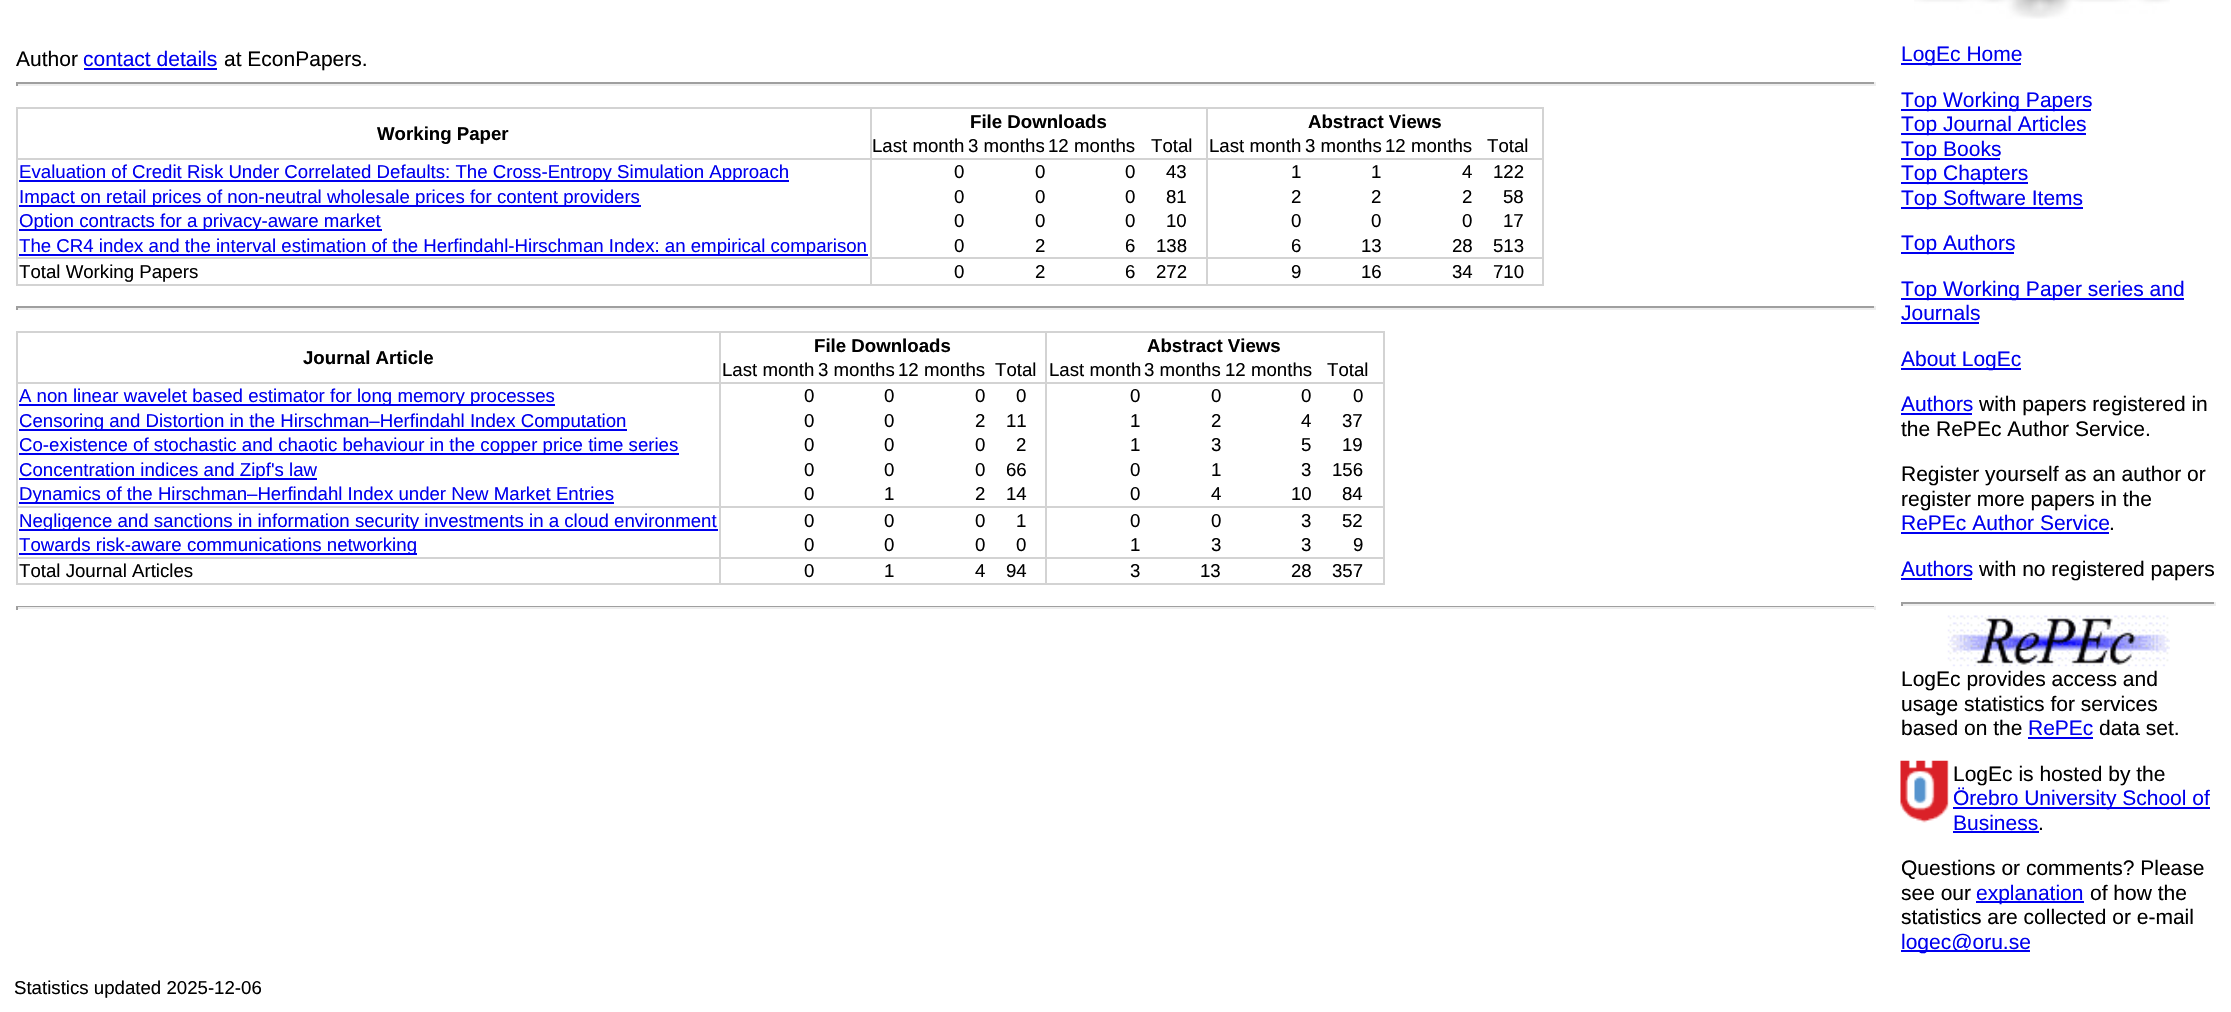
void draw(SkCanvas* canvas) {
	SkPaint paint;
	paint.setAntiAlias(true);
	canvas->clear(0xffffffff);
	SkFont f1(fontMgr->matchFamilyStyle("Liberation Sans", SkFontStyle::Normal()), 21);
	f1.setSubpixel(true);
	paint.setColor(0xff000000);
	canvas->drawString("Author", 16, 66, f1, paint);
	paint.setColor(0xff0000ee);
	canvas->drawString("contact details", 83, 66, f1, paint);
	canvas->drawRect(SkRect::MakeXYWH(84, 68, 133, 2), paint);
	paint.setColor(0xff000000);
	canvas->drawString("at EconPapers.", 224, 66, f1, paint);
	paint.setColor(0xff9f9f9f);
	canvas->drawRect(SkRect::MakeXYWH(16, 82, 1860, 2), paint);
	paint.setColor(0xffeeeeee);
	canvas->drawRect(SkRect::MakeXYWH(1874, 82, 2, 4), paint);
	canvas->drawRect(SkRect::MakeXYWH(16, 84, 1860, 2), paint);
	paint.setColor(0xff9f9f9f);
	canvas->drawRect(SkRect::MakeXYWH(16, 82, 2, 4), paint);
	paint.setColor(0xffd3d3d3);
	canvas->drawRect(SkRect::MakeXYWH(870, 107, 2, 178), paint);
	canvas->drawRect(SkRect::MakeXYWH(16, 107, 2, 178), paint);
	canvas->drawRect(SkRect::MakeXYWH(1206, 107, 2, 178), paint);
	canvas->drawRect(SkRect::MakeXYWH(1542, 107, 2, 178), paint);
	canvas->drawRect(SkRect::MakeXYWH(16, 107, 1528, 2), paint);
	SkFont f2(fontMgr->matchFamilyStyle("Liberation Sans", SkFontStyle::Bold()), 18.65);
	f2.setSubpixel(true);
	paint.setColor(0xff000000);
	canvas->drawString("File Downloads", 970, 128, f2, paint);
	canvas->drawString("Abstract Views", 1308, 128, f2, paint);
	canvas->drawString("Working Paper", 377, 140, f2, paint);
	paint.setColor(0xffd3d3d3);
	canvas->drawRect(SkRect::MakeXYWH(16, 158, 1528, 2), paint);
	SkFont f3(fontMgr->matchFamilyStyle("Liberation Sans", SkFontStyle::Normal()), 18.65);
	f3.setSubpixel(true);
	paint.setColor(0xff000000);
	canvas->drawString("Last month", 872, 152, f3, paint);
	canvas->drawString("3 months", 968, 152, f3, paint);
	canvas->drawString("12 months", 1048, 152, f3, paint);
	canvas->drawString("Total", 1151, 152, f3, paint);
	canvas->drawString("Last month", 1209, 152, f3, paint);
	canvas->drawString("3 months", 1305, 152, f3, paint);
	canvas->drawString("12 months", 1385, 152, f3, paint);
	canvas->drawString("Total", 1487, 152, f3, paint);
	paint.setColor(0xff0000ee);
	canvas->drawRect(SkRect::MakeXYWH(19, 180, 770, 2), paint);
	canvas->drawString("Evaluation of Credit Risk Under Correlated Defaults: The Cross-Entropy Simulation Approach", 19, 178, f3, paint);
	paint.setColor(0xff000000);
	canvas->drawString("0", 954, 178, f3, paint);
	canvas->drawString("0", 1035, 178, f3, paint);
	canvas->drawString("0", 1125, 178, f3, paint);
	canvas->drawString("43", 1166, 178, f3, paint);
	canvas->drawString("1", 1291, 178, f3, paint);
	canvas->drawString("1", 1371, 178, f3, paint);
	canvas->drawString("4", 1462, 178, f3, paint);
	canvas->drawString("122", 1493, 178, f3, paint);
	paint.setColor(0xff0000ee);
	canvas->drawRect(SkRect::MakeXYWH(19, 205, 622, 2), paint);
	canvas->drawString("Impact on retail prices of non-neutral wholesale prices for content providers", 19, 203, f3, paint);
	paint.setColor(0xff000000);
	canvas->drawString("0", 954, 203, f3, paint);
	canvas->drawString("0", 1035, 203, f3, paint);
	canvas->drawString("0", 1125, 203, f3, paint);
	canvas->drawString("81", 1166, 203, f3, paint);
	canvas->drawString("2", 1291, 203, f3, paint);
	canvas->drawString("2", 1371, 203, f3, paint);
	canvas->drawString("2", 1462, 203, f3, paint);
	canvas->drawString("58", 1503, 203, f3, paint);
	paint.setColor(0xff0000ee);
	canvas->drawRect(SkRect::MakeXYWH(19, 229, 363, 2), paint);
	canvas->drawString("Option contracts for a privacy-aware market", 19, 227, f3, paint);
	paint.setColor(0xff000000);
	canvas->drawString("0", 954, 227, f3, paint);
	canvas->drawString("0", 1035, 227, f3, paint);
	canvas->drawString("0", 1125, 227, f3, paint);
	canvas->drawString("10", 1166, 227, f3, paint);
	canvas->drawString("0", 1291, 227, f3, paint);
	canvas->drawString("0", 1371, 227, f3, paint);
	canvas->drawString("0", 1462, 227, f3, paint);
	canvas->drawString("17", 1503, 227, f3, paint);
	paint.setColor(0xffd3d3d3);
	canvas->drawRect(SkRect::MakeXYWH(16, 257, 1528, 2), paint);
	paint.setColor(0xff0000ee);
	canvas->drawRect(SkRect::MakeXYWH(19, 254, 849, 2), paint);
	canvas->drawString("The CR4 index and the interval estimation of the Herfindahl-Hirschman Index: an empirical comparison", 19, 252, f3, paint);
	paint.setColor(0xff000000);
	canvas->drawString("0", 954, 252, f3, paint);
	canvas->drawString("2", 1035, 252, f3, paint);
	canvas->drawString("6", 1125, 252, f3, paint);
	canvas->drawString("138", 1156, 252, f3, paint);
	canvas->drawString("6", 1291, 252, f3, paint);
	canvas->drawString("13", 1361, 252, f3, paint);
	canvas->drawString("28", 1452, 252, f3, paint);
	canvas->drawString("513", 1493, 252, f3, paint);
	paint.setColor(0xffd3d3d3);
	canvas->drawRect(SkRect::MakeXYWH(16, 284, 1528, 2), paint);
	paint.setColor(0xff000000);
	canvas->drawString("Total Working Papers", 19, 278, f3, paint);
	canvas->drawString("0", 954, 278, f3, paint);
	canvas->drawString("2", 1035, 278, f3, paint);
	canvas->drawString("6", 1125, 278, f3, paint);
	canvas->drawString("272", 1156, 278, f3, paint);
	canvas->drawString("9", 1291, 278, f3, paint);
	canvas->drawString("16", 1361, 278, f3, paint);
	canvas->drawString("34", 1452, 278, f3, paint);
	canvas->drawString("710", 1493, 278, f3, paint);
	paint.setColor(0xff9f9f9f);
	canvas->drawRect(SkRect::MakeXYWH(16, 306, 1860, 2), paint);
	paint.setColor(0xffeeeeee);
	canvas->drawRect(SkRect::MakeXYWH(1874, 306, 2, 4), paint);
	canvas->drawRect(SkRect::MakeXYWH(16, 308, 1860, 2), paint);
	paint.setColor(0xff9f9f9f);
	canvas->drawRect(SkRect::MakeXYWH(16, 306, 2, 4), paint);
	paint.setColor(0xffd3d3d3);
	canvas->drawRect(SkRect::MakeXYWH(719, 331, 2, 254), paint);
	canvas->drawRect(SkRect::MakeXYWH(16, 331, 2, 254), paint);
	canvas->drawRect(SkRect::MakeXYWH(1045, 331, 2, 254), paint);
	canvas->drawRect(SkRect::MakeXYWH(1383, 331, 2, 254), paint);
	canvas->drawRect(SkRect::MakeXYWH(16, 331, 1368, 2), paint);
	paint.setColor(0xff000000);
	canvas->drawString("File Downloads", 814, 352, f2, paint);
	canvas->drawString("Abstract Views", 1147, 352, f2, paint);
	canvas->drawString("Journal Article", 303, 364, f2, paint);
	paint.setColor(0xffd3d3d3);
	canvas->drawRect(SkRect::MakeXYWH(16, 382, 1368, 2), paint);
	paint.setColor(0xff000000);
	canvas->drawString("Last month", 722, 376, f3, paint);
	canvas->drawString("3 months", 818, 376, f3, paint);
	canvas->drawString("12 months", 898, 376, f3, paint);
	canvas->drawString("Total", 995, 376, f3, paint);
	canvas->drawString("Last month", 1049, 376, f3, paint);
	canvas->drawString("3 months", 1144, 376, f3, paint);
	canvas->drawString("12 months", 1225, 376, f3, paint);
	canvas->drawString("Total", 1327, 376, f3, paint);
	paint.setColor(0xff0000ee);
	canvas->drawRect(SkRect::MakeXYWH(19, 404, 536, 2), paint);
	canvas->drawString("A non linear wavelet based estimator for long memory processes", 19, 402, f3, paint);
	paint.setColor(0xff000000);
	canvas->drawString("0", 804, 402, f3, paint);
	canvas->drawString("0", 884, 402, f3, paint);
	canvas->drawString("0", 975, 402, f3, paint);
	canvas->drawString("0", 1016, 402, f3, paint);
	canvas->drawString("0", 1130, 402, f3, paint);
	canvas->drawString("0", 1211, 402, f3, paint);
	canvas->drawString("0", 1301, 402, f3, paint);
	canvas->drawString("0", 1353, 402, f3, paint);
	paint.setColor(0xff0000ee);
	canvas->drawRect(SkRect::MakeXYWH(19, 429, 608, 2), paint);
	canvas->drawString("Censoring and Distortion in the Hirschman–Herfindahl Index Computation", 19, 427, f3, paint);
	paint.setColor(0xff000000);
	canvas->drawString("0", 804, 427, f3, paint);
	canvas->drawString("0", 884, 427, f3, paint);
	canvas->drawString("2", 975, 427, f3, paint);
	canvas->drawString("11", 1006, 427, f3, paint);
	canvas->drawString("1", 1130, 427, f3, paint);
	canvas->drawString("2", 1211, 427, f3, paint);
	canvas->drawString("4", 1301, 427, f3, paint);
	canvas->drawString("37", 1342, 427, f3, paint);
	paint.setColor(0xff0000ee);
	canvas->drawRect(SkRect::MakeXYWH(19, 453, 660, 2), paint);
	canvas->drawString("Co-existence of stochastic and chaotic behaviour in the copper price time series", 19, 451, f3, paint);
	paint.setColor(0xff000000);
	canvas->drawString("0", 804, 451, f3, paint);
	canvas->drawString("0", 884, 451, f3, paint);
	canvas->drawString("0", 975, 451, f3, paint);
	canvas->drawString("2", 1016, 451, f3, paint);
	canvas->drawString("1", 1130, 451, f3, paint);
	canvas->drawString("3", 1211, 451, f3, paint);
	canvas->drawString("5", 1301, 451, f3, paint);
	canvas->drawString("19", 1342, 451, f3, paint);
	paint.setColor(0xff0000ee);
	canvas->drawRect(SkRect::MakeXYWH(19, 478, 298, 2), paint);
	canvas->drawString("Concentration indices and Zipf's law", 19, 476, f3, paint);
	paint.setColor(0xff000000);
	canvas->drawString("0", 804, 476, f3, paint);
	canvas->drawString("0", 884, 476, f3, paint);
	canvas->drawString("0", 975, 476, f3, paint);
	canvas->drawString("66", 1006, 476, f3, paint);
	canvas->drawString("0", 1130, 476, f3, paint);
	canvas->drawString("1", 1211, 476, f3, paint);
	canvas->drawString("3", 1301, 476, f3, paint);
	canvas->drawString("156", 1332, 476, f3, paint);
	paint.setColor(0xffd3d3d3);
	canvas->drawRect(SkRect::MakeXYWH(16, 506, 1368, 2), paint);
	paint.setColor(0xff0000ee);
	canvas->drawRect(SkRect::MakeXYWH(19, 502, 595, 2), paint);
	canvas->drawString("Dynamics of the Hirschman–Herfindahl Index under New Market Entries", 19, 500, f3, paint);
	paint.setColor(0xff000000);
	canvas->drawString("0", 804, 500, f3, paint);
	canvas->drawString("1", 884, 500, f3, paint);
	canvas->drawString("2", 975, 500, f3, paint);
	canvas->drawString("14", 1006, 500, f3, paint);
	canvas->drawString("0", 1130, 500, f3, paint);
	canvas->drawString("4", 1211, 500, f3, paint);
	canvas->drawString("10", 1291, 500, f3, paint);
	canvas->drawString("84", 1342, 500, f3, paint);
	paint.setColor(0xff0000ee);
	canvas->drawRect(SkRect::MakeXYWH(19, 529, 699, 2), paint);
	canvas->drawString("Negligence and sanctions in information security investments in a cloud environment", 19, 527, f3, paint);
	paint.setColor(0xff000000);
	canvas->drawString("0", 804, 527, f3, paint);
	canvas->drawString("0", 884, 527, f3, paint);
	canvas->drawString("0", 975, 527, f3, paint);
	canvas->drawString("1", 1016, 527, f3, paint);
	canvas->drawString("0", 1130, 527, f3, paint);
	canvas->drawString("0", 1211, 527, f3, paint);
	canvas->drawString("3", 1301, 527, f3, paint);
	canvas->drawString("52", 1342, 527, f3, paint);
	paint.setColor(0xffd3d3d3);
	canvas->drawRect(SkRect::MakeXYWH(16, 557, 1368, 2), paint);
	paint.setColor(0xff0000ee);
	canvas->drawRect(SkRect::MakeXYWH(19, 553, 398, 2), paint);
	canvas->drawString("Towards risk-aware communications networking", 19, 551, f3, paint);
	paint.setColor(0xff000000);
	canvas->drawString("0", 804, 551, f3, paint);
	canvas->drawString("0", 884, 551, f3, paint);
	canvas->drawString("0", 975, 551, f3, paint);
	canvas->drawString("0", 1016, 551, f3, paint);
	canvas->drawString("1", 1130, 551, f3, paint);
	canvas->drawString("3", 1211, 551, f3, paint);
	canvas->drawString("3", 1301, 551, f3, paint);
	canvas->drawString("9", 1353, 551, f3, paint);
	paint.setColor(0xffd3d3d3);
	canvas->drawRect(SkRect::MakeXYWH(16, 583, 1368, 2), paint);
	paint.setColor(0xff000000);
	canvas->drawString("Total Journal Articles", 19, 577, f3, paint);
	canvas->drawString("0", 804, 577, f3, paint);
	canvas->drawString("1", 884, 577, f3, paint);
	canvas->drawString("4", 975, 577, f3, paint);
	canvas->drawString("94", 1006, 577, f3, paint);
	canvas->drawString("3", 1130, 577, f3, paint);
	canvas->drawString("13", 1200, 577, f3, paint);
	canvas->drawString("28", 1291, 577, f3, paint);
	canvas->drawString("357", 1332, 577, f3, paint);
	paint.setColor(0xff9f9f9f);
	canvas->drawRect(SkRect::MakeXYWH(16, 606, 1860, 1), paint);
	paint.setColor(0xffeeeeee);
	canvas->drawRect(SkRect::MakeXYWH(1874, 606, 2, 4), paint);
	canvas->drawRect(SkRect::MakeXYWH(16, 607, 1860, 2), paint);
	paint.setColor(0xff9f9f9f);
	canvas->drawRect(SkRect::MakeXYWH(16, 606, 2, 4), paint);
	canvas->drawImageRect(SkImages::DeferredFromEncodedData(SkData::MakeFromFileName("img1.png")), SkRect::MakeXYWH(1914, 0, 256, 19), SkSamplingOptions());
	paint.setColor(0xff0000ee);
	canvas->drawRect(SkRect::MakeXYWH(1901, 63, 120, 2), paint);
	canvas->drawString("LogEc Home", 1901, 61, f1, paint);
	canvas->drawRect(SkRect::MakeXYWH(1901, 109, 190, 2), paint);
	canvas->drawString("Top Working Papers", 1901, 107, f1, paint);
	canvas->drawRect(SkRect::MakeXYWH(1901, 133, 185, 2), paint);
	canvas->drawString("Top Journal Articles", 1901, 131, f1, paint);
	canvas->drawRect(SkRect::MakeXYWH(1901, 158, 99, 2), paint);
	canvas->drawString("Top Books", 1901, 156, f1, paint);
	canvas->drawRect(SkRect::MakeXYWH(1901, 182, 127, 2), paint);
	canvas->drawString("Top Chapters", 1901, 180, f1, paint);
	canvas->drawRect(SkRect::MakeXYWH(1901, 207, 182, 2), paint);
	canvas->drawString("Top Software Items", 1901, 205, f1, paint);
	canvas->drawRect(SkRect::MakeXYWH(1901, 252, 113, 2), paint);
	canvas->drawString("Top Authors", 1901, 250, f1, paint);
	canvas->drawRect(SkRect::MakeXYWH(1901, 298, 283, 2), paint);
	canvas->drawString("Top Working Paper series and", 1901, 296, f1, paint);
	canvas->drawString("Journals", 1901, 320, f1, paint);
	canvas->drawRect(SkRect::MakeXYWH(1901, 322, 78, 2), paint);
	canvas->drawRect(SkRect::MakeXYWH(1901, 368, 120, 2), paint);
	canvas->drawString("About LogEc", 1901, 366, f1, paint);
	canvas->drawString("Authors", 1901, 411, f1, paint);
	canvas->drawRect(SkRect::MakeXYWH(1901, 413, 71, 2), paint);
	paint.setColor(0xff000000);
	canvas->drawString("with papers registered in", 1979, 411, f1, paint);
	canvas->drawString("the RePEc Author Service.", 1901, 436, f1, paint);
	canvas->drawString("Register yourself as an author or", 1901, 481, f1, paint);
	canvas->drawString("register more papers in the", 1901, 506, f1, paint);
	paint.setColor(0xff0000ee);
	canvas->drawString("RePEc Author Service", 1901, 530, f1, paint);
	canvas->drawRect(SkRect::MakeXYWH(1901, 532, 208, 2), paint);
	paint.setColor(0xff000000);
	canvas->drawString(".", 2109, 530, f1, paint);
	paint.setColor(0xff0000ee);
	canvas->drawString("Authors", 1901, 576, f1, paint);
	canvas->drawRect(SkRect::MakeXYWH(1901, 578, 71, 2), paint);
	paint.setColor(0xff000000);
	canvas->drawString("with no registered papers", 1979, 576, f1, paint);
	paint.setColor(0xff9f9f9f);
	canvas->drawRect(SkRect::MakeXYWH(1901, 602, 315, 2), paint);
	paint.setColor(0xffeeeeee);
	canvas->drawRect(SkRect::MakeXYWH(2214, 602, 2, 4), paint);
	canvas->drawRect(SkRect::MakeXYWH(1901, 604, 315, 2), paint);
	paint.setColor(0xff9f9f9f);
	canvas->drawRect(SkRect::MakeXYWH(1901, 602, 2, 4), paint);
	canvas->drawImageRect(SkImages::DeferredFromEncodedData(SkData::MakeFromFileName("img2.png")), SkRect::MakeXYWH(1947, 615, 223, 52), SkSamplingOptions());
	paint.setColor(0xff000000);
	canvas->drawString("LogEc provides access and", 1901, 686, f1, paint);
	canvas->drawString("usage statistics for services", 1901, 711, f1, paint);
	canvas->drawString("based on the", 1901, 735, f1, paint);
	paint.setColor(0xff0000ee);
	canvas->drawString("RePEc", 2028, 735, f1, paint);
	canvas->drawRect(SkRect::MakeXYWH(2028, 737, 65, 2), paint);
	paint.setColor(0xff000000);
	canvas->drawString("data set.", 2099, 735, f1, paint);
	canvas->drawImageRect(SkImages::DeferredFromEncodedData(SkData::MakeFromFileName("img3.png")), SkRect::MakeXYWH(1900, 760, 49, 63), SkSamplingOptions());
	canvas->drawString("LogEc is hosted by the", 1953, 781, f1, paint);
	paint.setColor(0xff0000ee);
	canvas->drawRect(SkRect::MakeXYWH(1953, 807, 257, 2), paint);
	canvas->drawString("Örebro University School of", 1953, 805, f1, paint);
	canvas->drawString("Business", 1953, 830, f1, paint);
	canvas->drawRect(SkRect::MakeXYWH(1953, 831, 86, 2), paint);
	paint.setColor(0xff000000);
	canvas->drawString(".", 2038, 830, f1, paint);
	canvas->drawString("Questions or comments? Please", 1901, 875, f1, paint);
	canvas->drawString("see our", 1901, 900, f1, paint);
	paint.setColor(0xff0000ee);
	canvas->drawRect(SkRect::MakeXYWH(1976, 901, 108, 2), paint);
	canvas->drawString("explanation", 1976, 900, f1, paint);
	paint.setColor(0xff000000);
	canvas->drawString("of how the", 2090, 900, f1, paint);
	canvas->drawString("statistics are collected or e-mail", 1901, 924, f1, paint);
	paint.setColor(0xff0000ee);
	canvas->drawRect(SkRect::MakeXYWH(1901, 950, 129, 2), paint);
	canvas->drawString("logec@oru.se", 1901, 949, f1, paint);
	paint.setColor(0xff000000);
	canvas->drawString("Statistics updated 2025-12-06", 14, 994, f3, paint);
}
